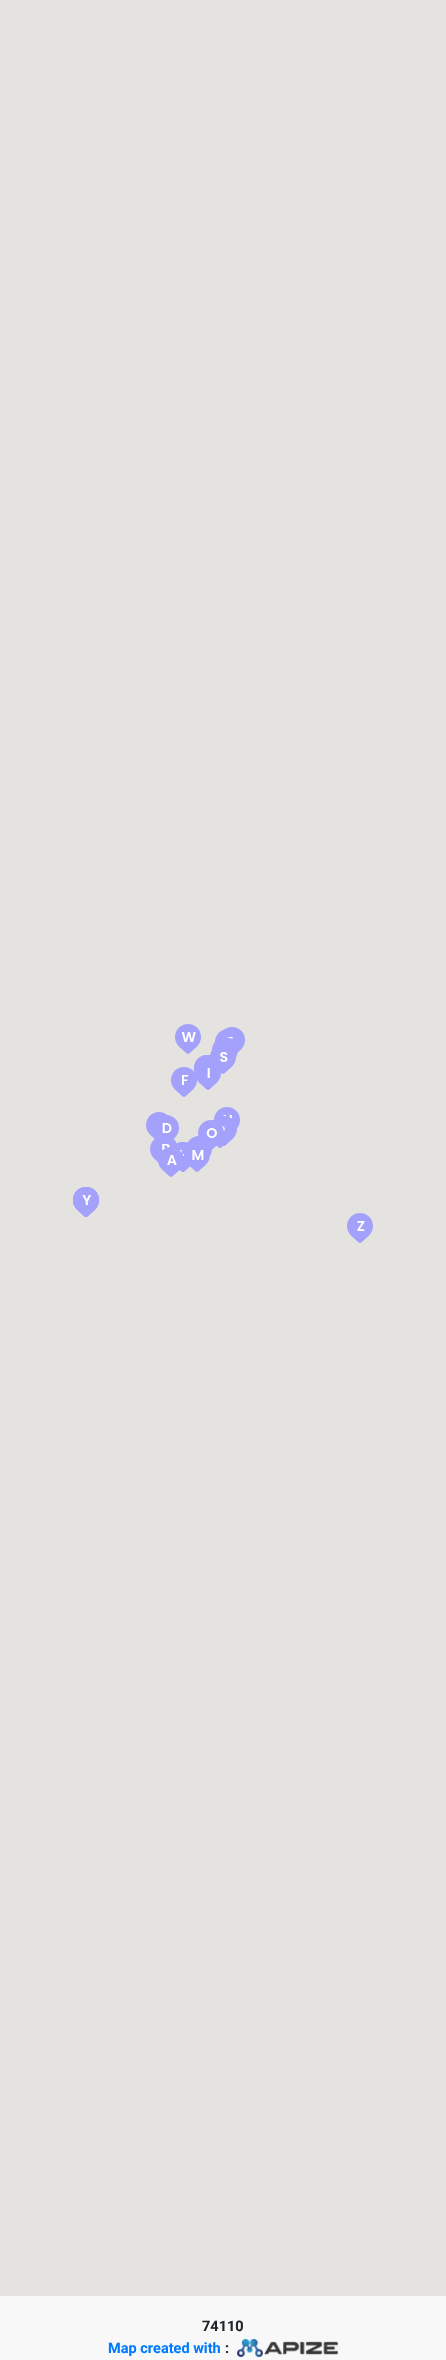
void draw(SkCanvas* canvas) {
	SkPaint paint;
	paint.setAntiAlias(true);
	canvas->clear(0xfff8f8f8);
	paint.setColor(0xffe5e3df);
	canvas->drawRect(SkRect::MakeXYWH(0, 0, 446, 2296), paint);
	canvas->drawImageRect(SkImages::DeferredFromEncodedData(SkData::MakeFromFileName("img1.png")), SkRect::MakeXYWH(175, 1024, 26, 30), SkSamplingOptions());
	canvas->drawImageRect(SkImages::DeferredFromEncodedData(SkData::MakeFromFileName("img2.png")), SkRect::MakeXYWH(222, 1027, 23, 26), SkSamplingOptions());
	canvas->drawImageRect(SkImages::DeferredFromEncodedData(SkData::MakeFromFileName("img3.png")), SkRect::MakeXYWH(215, 1029, 23, 23), SkSamplingOptions());
	canvas->drawImageRect(SkImages::DeferredFromEncodedData(SkData::MakeFromFileName("img4.png")), SkRect::MakeXYWH(212, 1037, 26, 21), SkSamplingOptions());
	canvas->drawImageRect(SkImages::DeferredFromEncodedData(SkData::MakeFromFileName("img6.png")), SkRect::MakeXYWH(210, 1045, 26, 29), SkSamplingOptions());
	canvas->drawImageRect(SkImages::DeferredFromEncodedData(SkData::MakeFromFileName("img5.png")), SkRect::MakeXYWH(194, 1055, 26, 20), SkSamplingOptions());
	canvas->drawImageRect(SkImages::DeferredFromEncodedData(SkData::MakeFromFileName("img7.png")), SkRect::MakeXYWH(194, 1055, 26, 20), SkSamplingOptions());
	canvas->drawImageRect(SkImages::DeferredFromEncodedData(SkData::MakeFromFileName("img9.png")), SkRect::MakeXYWH(195, 1063, 26, 27), SkSamplingOptions());
	canvas->drawImageRect(SkImages::DeferredFromEncodedData(SkData::MakeFromFileName("img8.png")), SkRect::MakeXYWH(171, 1067, 26, 30), SkSamplingOptions());
	canvas->drawImageRect(SkImages::DeferredFromEncodedData(SkData::MakeFromFileName("img10.png")), SkRect::MakeXYWH(146, 1112, 23, 27), SkSamplingOptions());
	canvas->drawImageRect(SkImages::DeferredFromEncodedData(SkData::MakeFromFileName("img11.png")), SkRect::MakeXYWH(214, 1107, 26, 23), SkSamplingOptions());
	canvas->drawImageRect(SkImages::DeferredFromEncodedData(SkData::MakeFromFileName("img12.png")), SkRect::MakeXYWH(157, 1115, 22, 25), SkSamplingOptions());
	canvas->drawImageRect(SkImages::DeferredFromEncodedData(SkData::MakeFromFileName("img13.png")), SkRect::MakeXYWH(214, 1116, 23, 30), SkSamplingOptions());
	canvas->drawImageRect(SkImages::DeferredFromEncodedData(SkData::MakeFromFileName("img14.png")), SkRect::MakeXYWH(211, 1119, 19, 29), SkSamplingOptions());
	canvas->drawImageRect(SkImages::DeferredFromEncodedData(SkData::MakeFromFileName("img15.png")), SkRect::MakeXYWH(198, 1120, 26, 30), SkSamplingOptions());
	canvas->drawImageRect(SkImages::DeferredFromEncodedData(SkData::MakeFromFileName("img16.png")), SkRect::MakeXYWH(150, 1139, 9, 24), SkSamplingOptions());
	canvas->drawImageRect(SkImages::DeferredFromEncodedData(SkData::MakeFromFileName("img17.png")), SkRect::MakeXYWH(159, 1139, 18, 16), SkSamplingOptions());
	canvas->drawImageRect(SkImages::DeferredFromEncodedData(SkData::MakeFromFileName("img19.png")), SkRect::MakeXYWH(187, 1136, 25, 21), SkSamplingOptions());
	canvas->drawImageRect(SkImages::DeferredFromEncodedData(SkData::MakeFromFileName("img18.png")), SkRect::MakeXYWH(172, 1142, 19, 30), SkSamplingOptions());
	canvas->drawImageRect(SkImages::DeferredFromEncodedData(SkData::MakeFromFileName("img20.png")), SkRect::MakeXYWH(172, 1142, 19, 30), SkSamplingOptions());
	canvas->drawImageRect(SkImages::DeferredFromEncodedData(SkData::MakeFromFileName("img21.png")), SkRect::MakeXYWH(184, 1144, 26, 28), SkSamplingOptions());
	canvas->drawImageRect(SkImages::DeferredFromEncodedData(SkData::MakeFromFileName("img22.png")), SkRect::MakeXYWH(158, 1147, 26, 30), SkSamplingOptions());
	canvas->drawImageRect(SkImages::DeferredFromEncodedData(SkData::MakeFromFileName("img23.png")), SkRect::MakeXYWH(73, 1187, 26, 30), SkSamplingOptions());
	canvas->drawImageRect(SkImages::DeferredFromEncodedData(SkData::MakeFromFileName("img24.png")), SkRect::MakeXYWH(73, 1187, 26, 30), SkSamplingOptions());
	canvas->drawImageRect(SkImages::DeferredFromEncodedData(SkData::MakeFromFileName("img25.png")), SkRect::MakeXYWH(73, 1187, 26, 30), SkSamplingOptions());
	canvas->drawImageRect(SkImages::DeferredFromEncodedData(SkData::MakeFromFileName("img26.png")), SkRect::MakeXYWH(73, 1187, 26, 30), SkSamplingOptions());
	canvas->drawImageRect(SkImages::DeferredFromEncodedData(SkData::MakeFromFileName("img27.png")), SkRect::MakeXYWH(347, 1213, 26, 30), SkSamplingOptions());
	SkFont f1(fontMgr->matchFamilyStyle("Roboto", SkFontStyle::Bold()), 14.5);
	f1.setSubpixel(true);
	paint.setColor(0xff212529);
	canvas->drawString("74110", 202, 2331, f1, paint);
	paint.setColor(0xff007bff);
	canvas->drawString("Map created with", 108, 2353, f1, paint);
	paint.setColor(0xff212529);
	canvas->drawString(":", 225, 2353, f1, paint);
	canvas->drawImageRect(SkImages::DeferredFromEncodedData(SkData::MakeFromFileName("img28.png")), SkRect::MakeXYWH(237, 2339, 101, 18), SkSamplingOptions());
}
